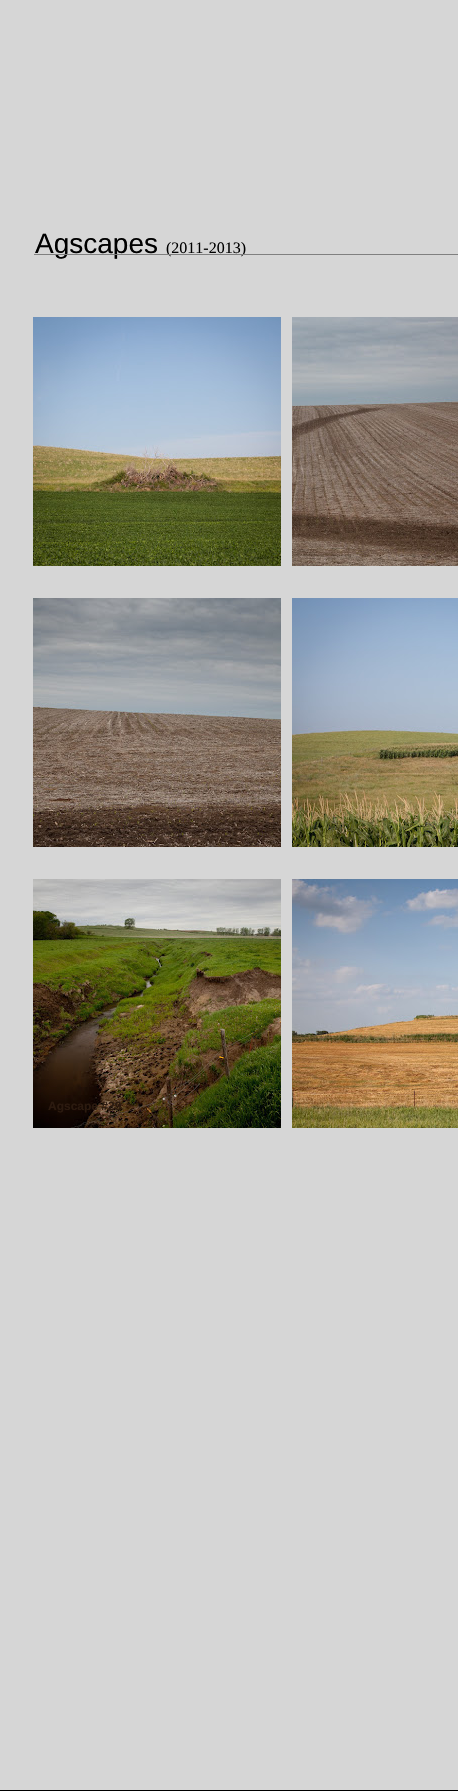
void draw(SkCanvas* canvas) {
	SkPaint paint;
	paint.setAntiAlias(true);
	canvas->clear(0xffd6d6d6);
	SkFont f1(fontMgr->matchFamilyStyle("Liberation Sans", SkFontStyle::Normal()), 28);
	f1.setSubpixel(true);
	paint.setColor(0xff000000);
	canvas->drawString("Agscapes", 35, 253, f1, paint);
	SkFont f2(fontMgr->matchFamilyStyle("Liberation Serif", SkFontStyle::Normal()), 16);
	f2.setSubpixel(true);
	canvas->drawString("(2011-2013)", 166, 253, f2, paint);
	paint.setColor(0xff808080);
	canvas->drawRect(SkRect::MakeXYWH(34, 254, 424, 1), paint);
	canvas->drawImageRect(SkImages::DeferredFromEncodedData(SkData::MakeFromFileName("img1.png")), SkRect::MakeXYWH(33, 317, 248, 249), SkSamplingOptions());
	canvas->drawImageRect(SkImages::DeferredFromEncodedData(SkData::MakeFromFileName("img2.png")), SkRect::MakeXYWH(292, 317, 166, 249), SkSamplingOptions());
	canvas->drawImageRect(SkImages::DeferredFromEncodedData(SkData::MakeFromFileName("img3.png")), SkRect::MakeXYWH(33, 598, 248, 249), SkSamplingOptions());
	canvas->drawImageRect(SkImages::DeferredFromEncodedData(SkData::MakeFromFileName("img4.png")), SkRect::MakeXYWH(292, 598, 166, 249), SkSamplingOptions());
	canvas->drawImageRect(SkImages::DeferredFromEncodedData(SkData::MakeFromFileName("img5.png")), SkRect::MakeXYWH(33, 879, 248, 249), SkSamplingOptions());
	SkFont f3(fontMgr->matchFamilyStyle("Liberation Sans", SkFontStyle::Bold()), 12);
	f3.setSubpixel(true);
	paint.setColor(0xff2b1a0f);
	canvas->drawString("Agscape #29", 48, 1110, f3, paint);
	canvas->drawImageRect(SkImages::DeferredFromEncodedData(SkData::MakeFromFileName("img6.png")), SkRect::MakeXYWH(292, 879, 166, 249), SkSamplingOptions());
	paint.setColor(0xff000000);
	canvas->drawRect(SkRect::MakeXYWH(0, 1790, 458, 1), paint);
}
